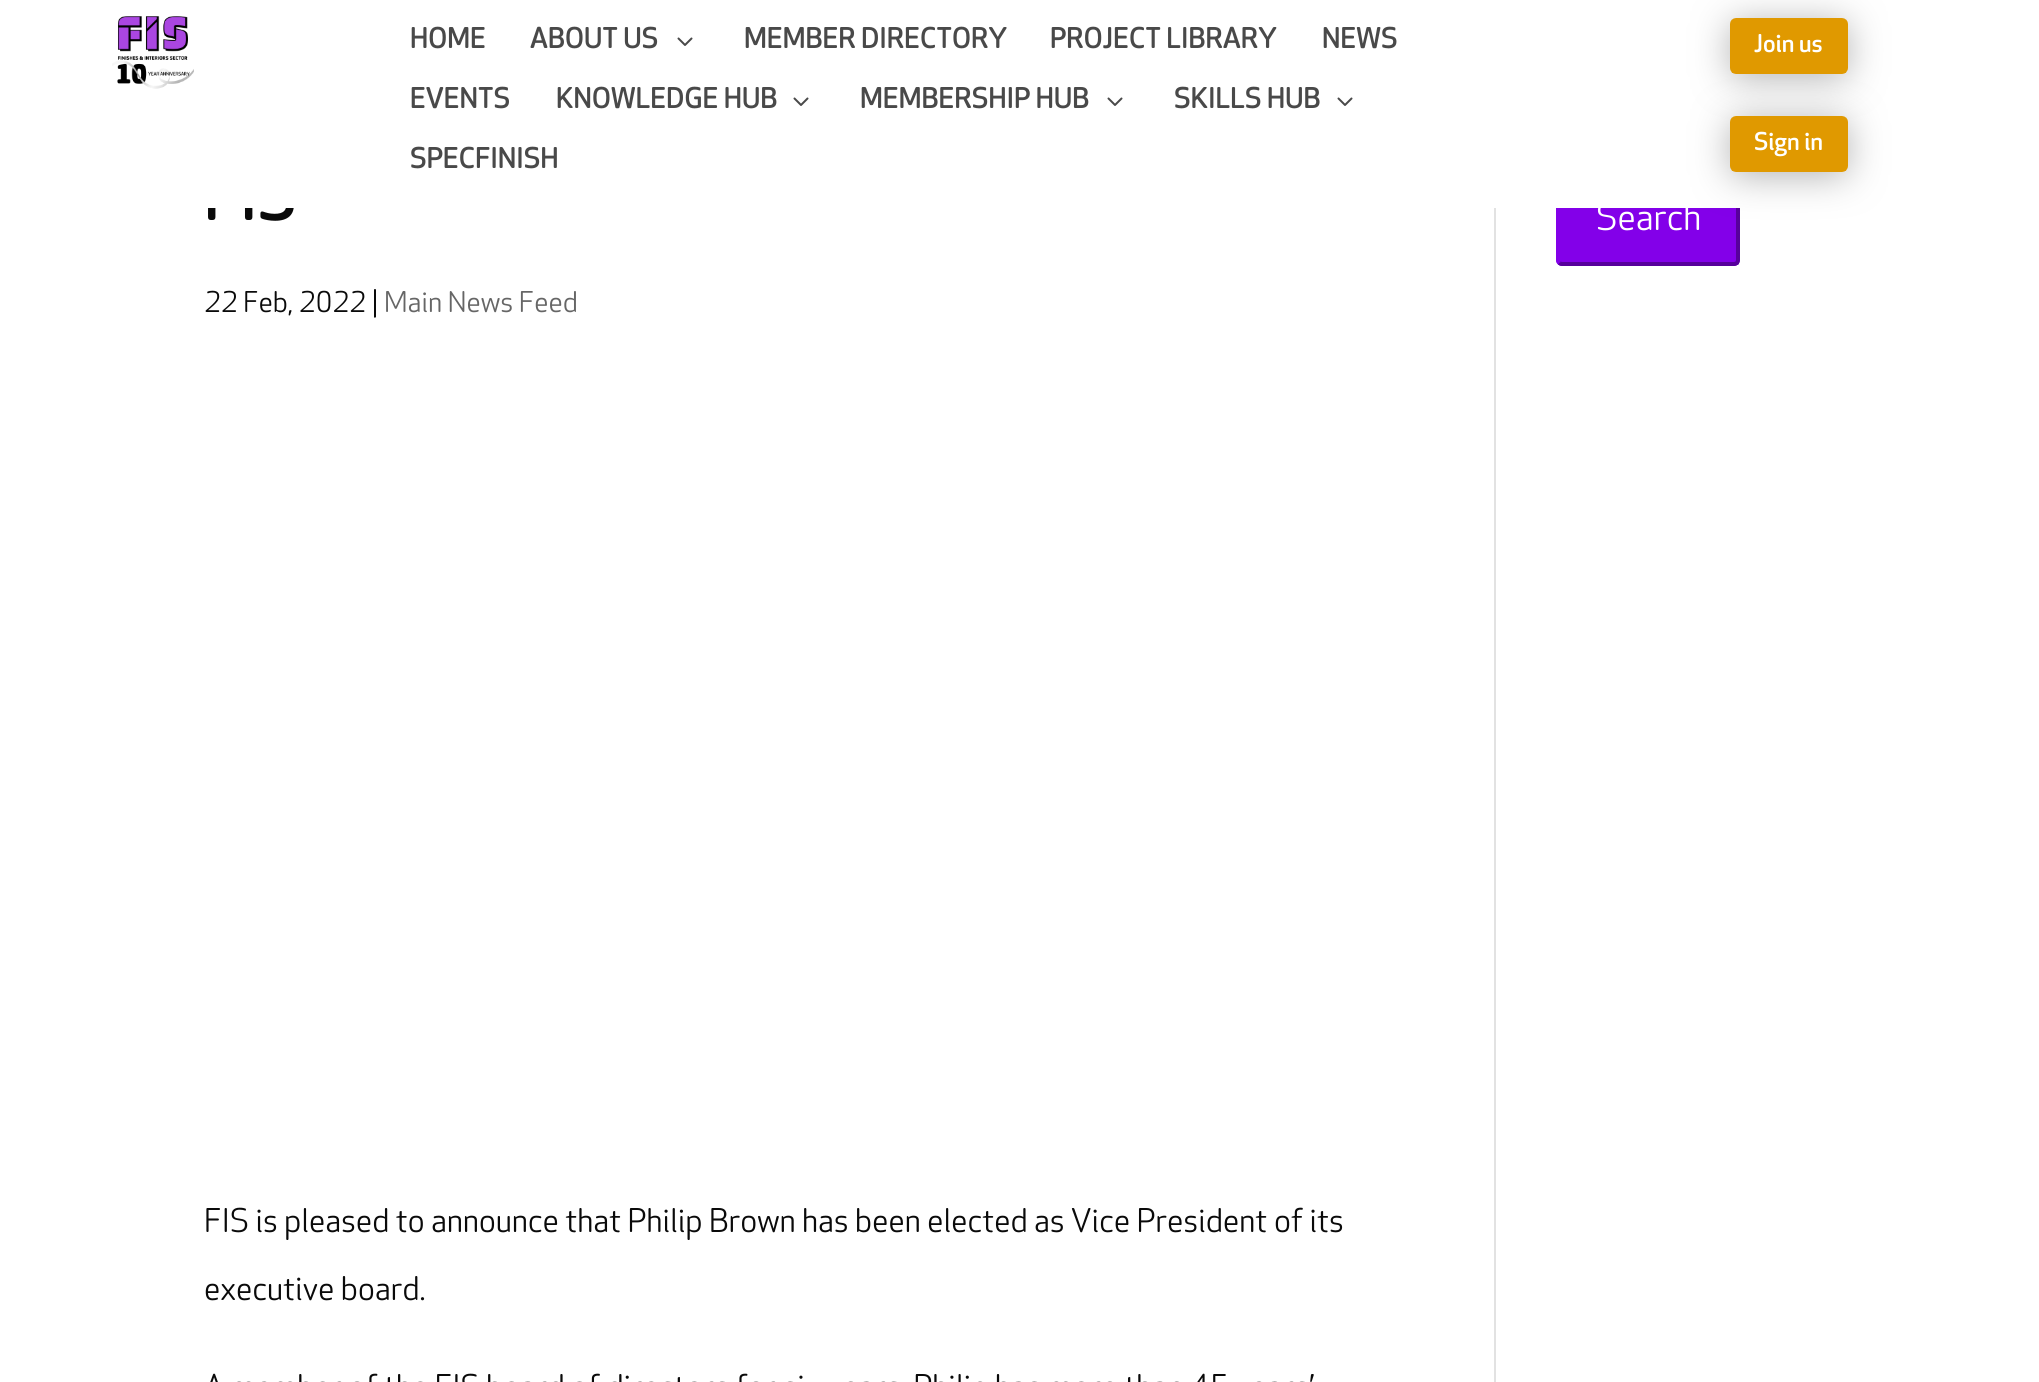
void draw(SkCanvas* canvas) {
	SkPaint paint;
	paint.setAntiAlias(true);
	auto svgPath = [&](const char* data, bool evenOdd = false) {
		SkPath result = *SkParsePath::FromSVGString(data);
		if (evenOdd) result.setFillType(SkPathFillType::kEvenOdd);
		return result;
	};
	canvas->clear(0xffffffff);
	paint.setColor(0xff8300e9);
	canvas->drawRoundRect(SkRect::MakeXYWH(1556, 176, 184, 90), 6, 6, paint);
	paint.setStroke(true);
	paint.setStrokeWidth(4);
	paint.setColor(0xff57009b);
	canvas->drawPath(svgPath("M1737 179C1737.5 180 1738 181 1738 182V260C1738 261 1737.5 262 1737 263C1736 263.5 1735 264 1734 264H1562C1561 264 1560 263.5 1559 263"), paint);
	paint.setColor(0xff8300e9);
	canvas->drawPath(svgPath("M1559 263C1558.5 262 1558 261 1558 260V182C1558 181 1558.5 180 1559 179C1560 178.5 1561 178 1562 178H1734C1735 178 1736 178.5 1737 179"), paint);
	paint.setStroke(false);
	paint.setColor(0xffffffff);
	canvas->drawRect(SkRect::MakeXYWH(1556, 176, 184, 32), paint);
	canvas->drawImageRect(SkImages::DeferredFromEncodedData(SkData::MakeFromFileName("img1.png")), SkRect::MakeXYWH(112, 16, 82, 73), SkSamplingOptions());
	canvas->drawImageRect(SkImages::DeferredFromEncodedData(SkData::MakeFromFileName("img2.png")), SkRect::MakeXYWH(411, 26, 74, 23), SkSamplingOptions());
	canvas->drawImageRect(SkImages::DeferredFromEncodedData(SkData::MakeFromFileName("img3.png")), SkRect::MakeXYWH(530, 26, 128, 23), SkSamplingOptions());
	canvas->drawImageRect(SkImages::DeferredFromEncodedData(SkData::MakeFromFileName("img4.png")), SkRect::MakeXYWH(677, 37, 16, 9), SkSamplingOptions());
	canvas->drawImageRect(SkImages::DeferredFromEncodedData(SkData::MakeFromFileName("img5.png")), SkRect::MakeXYWH(745, 26, 262, 23), SkSamplingOptions());
	canvas->drawImageRect(SkImages::DeferredFromEncodedData(SkData::MakeFromFileName("img6.png")), SkRect::MakeXYWH(1051, 26, 226, 23), SkSamplingOptions());
	canvas->drawImageRect(SkImages::DeferredFromEncodedData(SkData::MakeFromFileName("img7.png")), SkRect::MakeXYWH(1323, 26, 74, 23), SkSamplingOptions());
	canvas->drawImageRect(SkImages::DeferredFromEncodedData(SkData::MakeFromFileName("img8.png")), SkRect::MakeXYWH(411, 86, 98, 23), SkSamplingOptions());
	canvas->drawImageRect(SkImages::DeferredFromEncodedData(SkData::MakeFromFileName("img9.png")), SkRect::MakeXYWH(557, 86, 220, 23), SkSamplingOptions());
	canvas->drawImageRect(SkImages::DeferredFromEncodedData(SkData::MakeFromFileName("img4.png")), SkRect::MakeXYWH(793, 97, 16, 9), SkSamplingOptions());
	canvas->drawImageRect(SkImages::DeferredFromEncodedData(SkData::MakeFromFileName("img10.png")), SkRect::MakeXYWH(861, 86, 228, 23), SkSamplingOptions());
	canvas->drawImageRect(SkImages::DeferredFromEncodedData(SkData::MakeFromFileName("img4.png")), SkRect::MakeXYWH(1107, 97, 16, 9), SkSamplingOptions());
	canvas->drawImageRect(SkImages::DeferredFromEncodedData(SkData::MakeFromFileName("img11.png")), SkRect::MakeXYWH(1175, 86, 145, 23), SkSamplingOptions());
	canvas->drawImageRect(SkImages::DeferredFromEncodedData(SkData::MakeFromFileName("img4.png")), SkRect::MakeXYWH(1337, 97, 16, 9), SkSamplingOptions());
	canvas->drawImageRect(SkImages::DeferredFromEncodedData(SkData::MakeFromFileName("img12.png")), SkRect::MakeXYWH(411, 146, 146, 23), SkSamplingOptions());
	paint.setColor(0x4d000000);
	paint.setMaskFilter(SkMaskFilter::MakeBlur(kNormal_SkBlurStyle, 18));
	canvas->drawRoundRect(SkRect::MakeXYWH(1730, 22, 118, 56), 6, 6, paint);
	paint.setMaskFilter(nullptr);
	paint.setColor(0xffe09900);
	canvas->drawRoundRect(SkRect::MakeXYWH(1730, 18, 118, 56), 6, 6, paint);
	canvas->drawImageRect(SkImages::DeferredFromEncodedData(SkData::MakeFromFileName("img13.png")), SkRect::MakeXYWH(1754, 34, 68, 19), SkSamplingOptions());
	canvas->drawImageRect(SkImages::DeferredFromEncodedData(SkData::MakeFromFileName("img22.png")), SkRect::MakeXYWH(1597, 208, 103, 23), SkSamplingOptions());
	paint.setColor(0x4d000000);
	paint.setMaskFilter(SkMaskFilter::MakeBlur(kNormal_SkBlurStyle, 18));
	canvas->drawRoundRect(SkRect::MakeXYWH(1730, 120, 118, 56), 6, 6, paint);
	paint.setMaskFilter(nullptr);
	paint.setColor(0xffe09900);
	canvas->drawRoundRect(SkRect::MakeXYWH(1730, 116, 118, 56), 6, 6, paint);
	canvas->drawImageRect(SkImages::DeferredFromEncodedData(SkData::MakeFromFileName("img14.png")), SkRect::MakeXYWH(1755, 131, 67, 26), SkSamplingOptions());
	canvas->drawImageRect(SkImages::DeferredFromEncodedData(SkData::MakeFromFileName("img15.png")), SkRect::MakeXYWH(208, 208, 86, 13), SkSamplingOptions());
	canvas->drawImageRect(SkImages::DeferredFromEncodedData(SkData::MakeFromFileName("img16.png")), SkRect::MakeXYWH(205, 290, 160, 26), SkSamplingOptions());
	paint.setColor(0xff0a0a0a);
	canvas->drawPath(svgPath("M376 290C376 289 374.5 288.5 374 289.5V317C374 318 375.5 318 376 317Z"), paint);
	canvas->drawImageRect(SkImages::DeferredFromEncodedData(SkData::MakeFromFileName("img17.png")), SkRect::MakeXYWH(386, 291, 190, 22), SkSamplingOptions());
	canvas->drawImageRect(SkImages::DeferredFromEncodedData(SkData::MakeFromFileName("img18.png")), SkRect::MakeXYWH(206, 1207, 1061, 33), SkSamplingOptions());
	canvas->drawImageRect(SkImages::DeferredFromEncodedData(SkData::MakeFromFileName("img19.png")), SkRect::MakeXYWH(1275, 1207, 68, 26), SkSamplingOptions());
	canvas->drawImageRect(SkImages::DeferredFromEncodedData(SkData::MakeFromFileName("img20.png")), SkRect::MakeXYWH(205, 1276, 220, 25), SkSamplingOptions());
	canvas->drawImageRect(SkImages::DeferredFromEncodedData(SkData::MakeFromFileName("img21.png")), SkRect::MakeXYWH(210, 1373, 1104, 9), SkSamplingOptions());
	paint.setColor(0xffe2e2e2);
	canvas->drawRect(SkRect::MakeXYWH(1494, 208, 2, 1174), paint);
}
